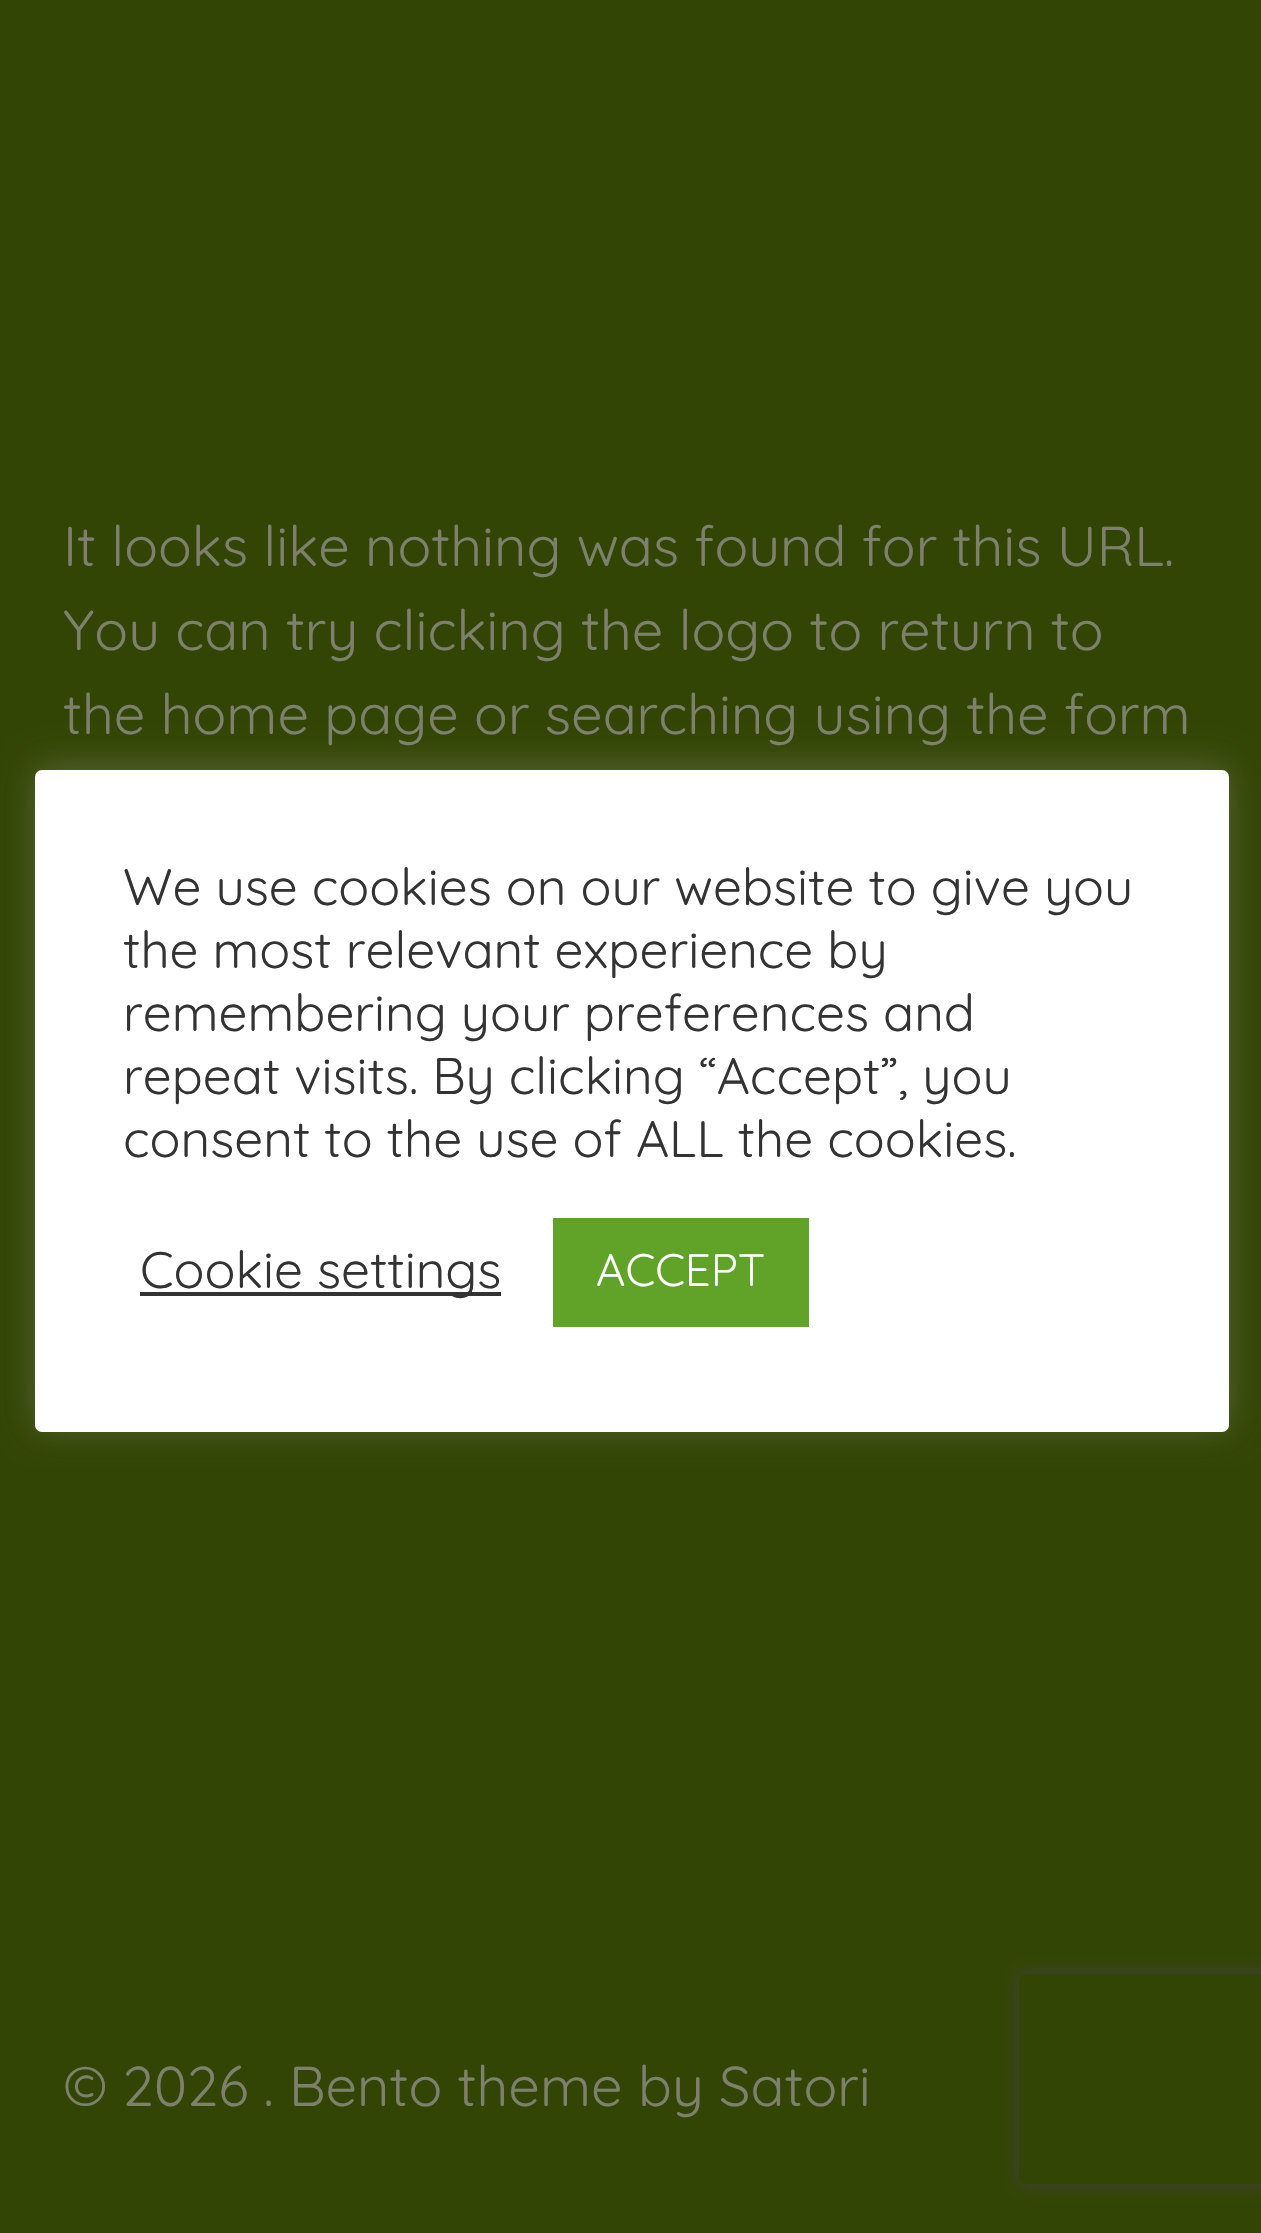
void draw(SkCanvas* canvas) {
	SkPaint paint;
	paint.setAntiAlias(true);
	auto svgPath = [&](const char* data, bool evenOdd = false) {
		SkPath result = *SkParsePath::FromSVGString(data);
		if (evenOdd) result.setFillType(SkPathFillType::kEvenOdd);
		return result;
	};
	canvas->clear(0xff334504);
	SkFont f1(fontMgr->matchFamilyStyle("Quicksand", SkFontStyle(300, SkFontStyle::kNormal_Width, SkFontStyle::kUpright_Slant)), 56);
	f1.setSubpixel(true);
	paint.setColor(0xff7d806d);
	canvas->drawString("It looks like nothing was found for this URL.", 63, 566, f1, paint);
	canvas->drawString("You can try clicking the logo to return to", 63, 650, f1, paint);
	canvas->drawString("the home page or searching using the form", 63, 734, f1, paint);
	canvas->drawString("© 2026 . Bento theme by Satori", 63, 2106, f1, paint);
	paint.setColor(0x4dacabab);
	paint.setMaskFilter(SkMaskFilter::MakeBlur(kNormal_SkBlurStyle, 17.5));
	canvas->drawRoundRect(SkRect::MakeXYWH(35, 767, 1194, 661), 7, 7, paint);
	paint.setMaskFilter(nullptr);
	paint.setColor(0xffffffff);
	canvas->drawRoundRect(SkRect::MakeXYWH(35, 770, 1194, 662), 7, 7, paint);
	SkFont f2(fontMgr->matchFamilyStyle("Quicksand", SkFontStyle(300, SkFontStyle::kNormal_Width, SkFontStyle::kUpright_Slant)), 51.3);
	f2.setSubpixel(true);
	paint.setColor(0xff333333);
	canvas->drawString("We use cookies on our website to give you", 123, 905, f2, paint);
	canvas->drawString("the most relevant experience by", 123, 968, f2, paint);
	canvas->drawString("remembering your preferences and", 123, 1031, f2, paint);
	canvas->drawString("repeat visits. By clicking “Accept”, you", 123, 1094, f2, paint);
	canvas->drawString("consent to the use of ALL the cookies.", 123, 1157, f2, paint);
	canvas->drawRect(SkRect::MakeXYWH(140, 1292, 361, 4), paint);
	canvas->drawString("Cookie settings", 140, 1288, f2, paint);
	paint.setColor(0xff61a229);
	canvas->drawRect(SkRect::MakeXYWH(553, 1218, 256, 109), paint);
	SkFont f3(fontMgr->matchFamilyStyle("Quicksand", SkFontStyle(300, SkFontStyle::kNormal_Width, SkFontStyle::kUpright_Slant)), 45.5);
	f3.setSubpixel(true);
	paint.setColor(0xffffffff);
	canvas->drawString("ACCEPT", 596, 1286, f3, paint);
	canvas->save();
	canvas->clipPath(svgPath("M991 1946H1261V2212H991ZM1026 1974H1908C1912 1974 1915 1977 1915 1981V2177C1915 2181 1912 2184 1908 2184H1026C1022 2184 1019 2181 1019 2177V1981C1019 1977 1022 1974 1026 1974Z", true), true);
	paint.setColor(0xff404040);
	paint.setMaskFilter(SkMaskFilter::MakeBlur(kNormal_SkBlurStyle, 9));
	canvas->drawRoundRect(SkRect::MakeXYWH(1019, 1974, 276, 210), 7, 7, paint);
	paint.setMaskFilter(nullptr);
	canvas->restore();
}
